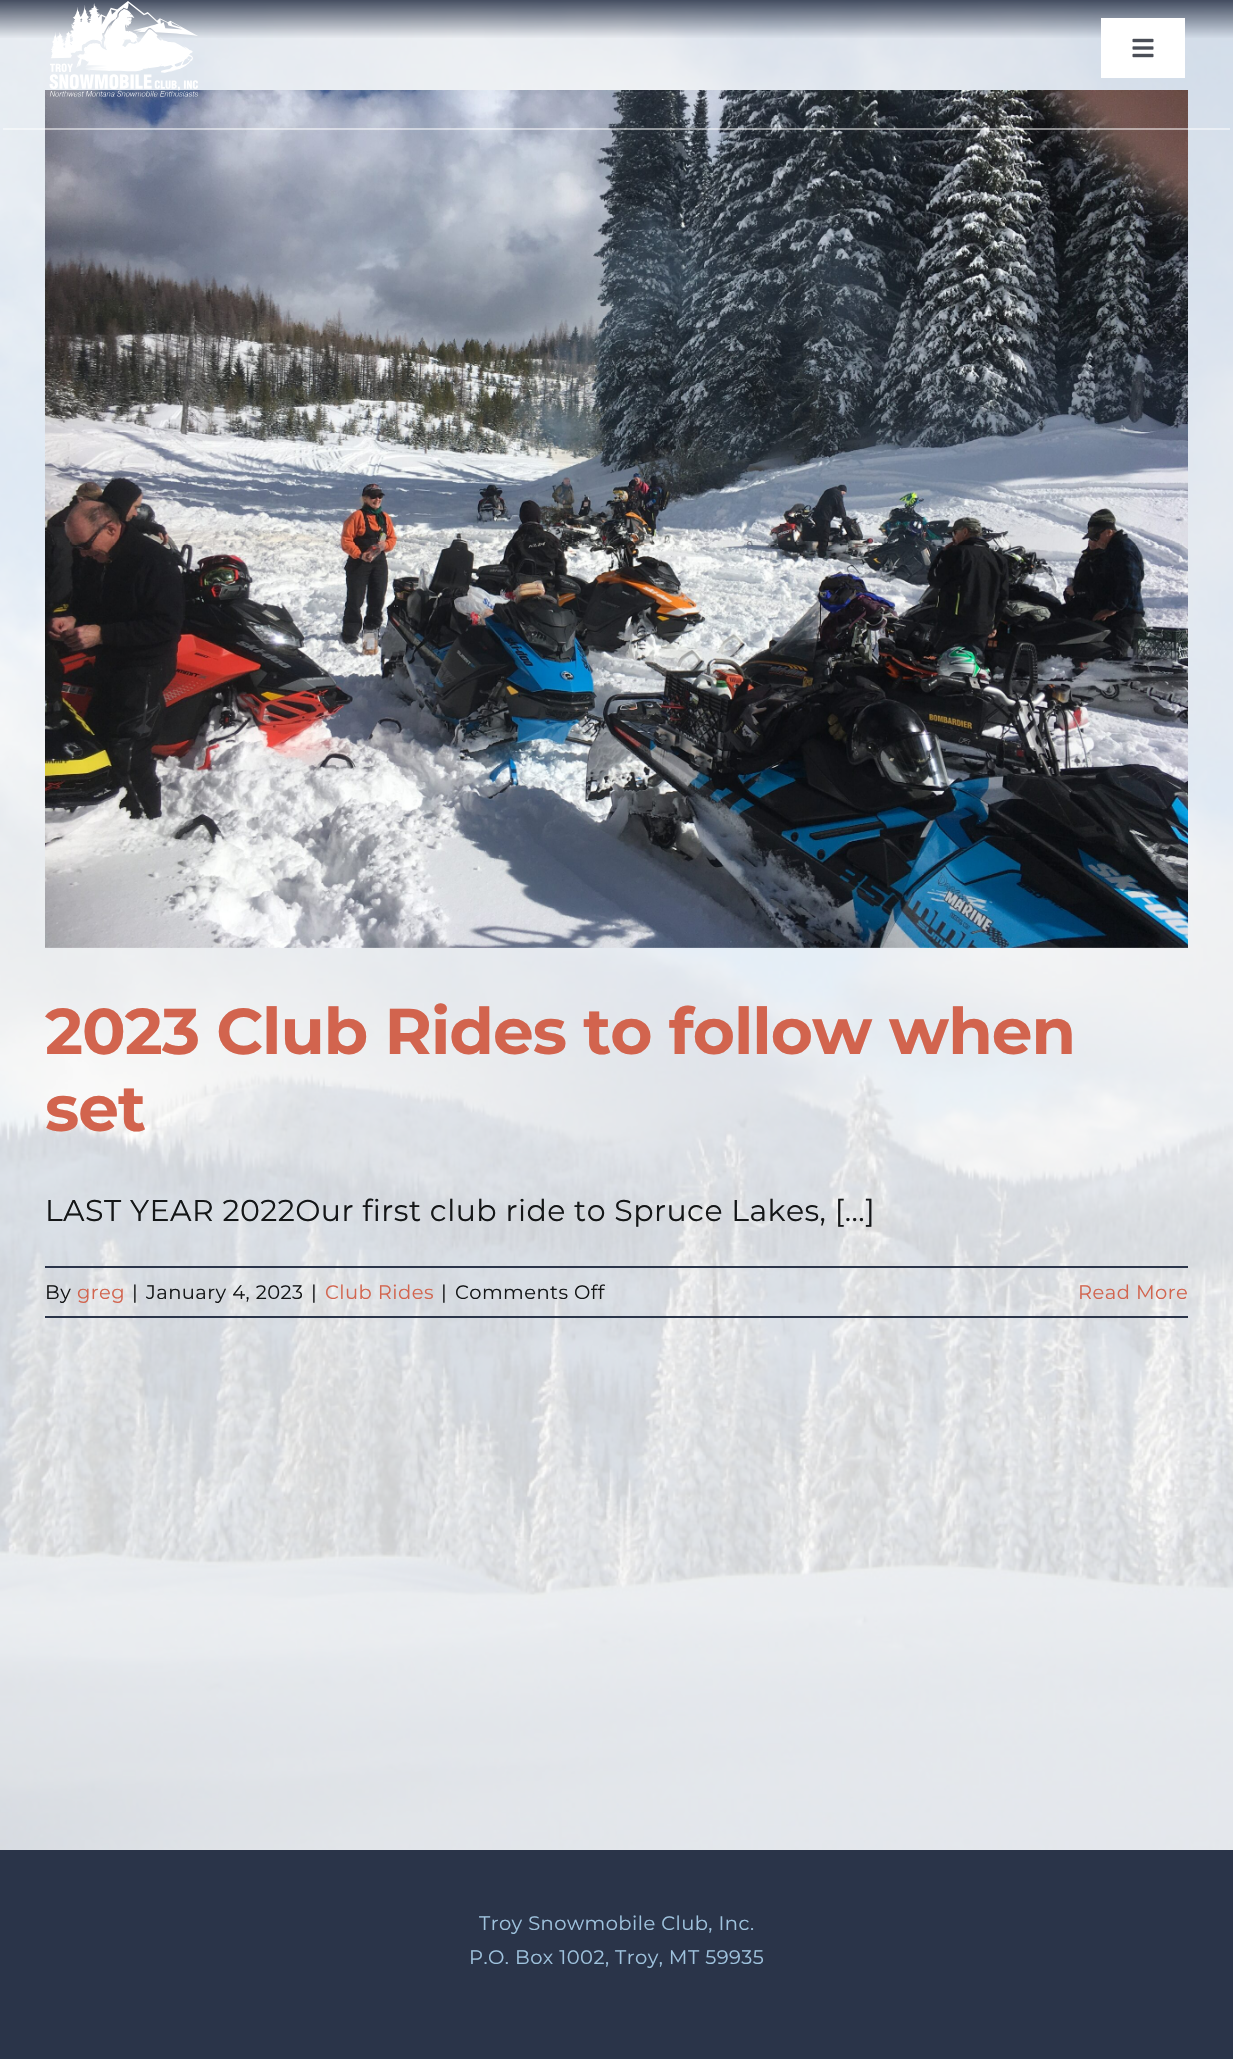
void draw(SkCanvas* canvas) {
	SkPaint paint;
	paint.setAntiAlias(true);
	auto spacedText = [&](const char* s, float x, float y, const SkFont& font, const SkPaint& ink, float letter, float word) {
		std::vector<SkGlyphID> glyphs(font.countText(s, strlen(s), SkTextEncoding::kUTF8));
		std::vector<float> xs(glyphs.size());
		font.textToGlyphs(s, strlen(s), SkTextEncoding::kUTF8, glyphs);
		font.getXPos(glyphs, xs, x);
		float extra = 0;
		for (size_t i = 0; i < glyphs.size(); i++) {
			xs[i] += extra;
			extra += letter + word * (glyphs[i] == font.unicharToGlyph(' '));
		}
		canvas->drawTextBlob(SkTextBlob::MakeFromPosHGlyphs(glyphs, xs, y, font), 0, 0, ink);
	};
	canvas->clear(0xffffffff);
	canvas->drawImageRect(SkImages::DeferredFromEncodedData(SkData::MakeFromFileName("img1.png")), SkRect::MakeXYWH(0, 0, 1233, 1850), SkSamplingOptions());
	paint.setColor(0xc9ffffff);
	canvas->drawRect(SkRect::MakeXYWH(0, 0, 1233, 1850), paint);
	{
		const SkColor colors[] = {0xdb2a3449, 0x002a3449};
		const float stops[] = {0, 0.3};
		const SkPoint ends[] = {{617, 0}, {617, 129}};
		paint.setShader(SkGradientShader::MakeLinear(ends, colors, stops, 2, SkTileMode::kClamp));
		paint.setAlpha(255);
	}
	canvas->drawRect(SkRect::MakeXYWH(0, 0, 1233, 38), paint);
	canvas->drawImageRect(SkImages::DeferredFromEncodedData(SkData::MakeFromFileName("img4.png")), SkRect::MakeXYWH(45, 90, 1143, 858), SkSamplingOptions());
	paint.setShader(nullptr);
	paint.setColor(0x80ffffff);
	canvas->drawRect(SkRect::MakeXYWH(3, 128, 1227, 2), paint);
	canvas->drawImageRect(SkImages::DeferredFromEncodedData(SkData::MakeFromFileName("img2.png")), SkRect::MakeXYWH(49, 1, 149, 96), SkSamplingOptions());
	paint.setColor(0xffffffff);
	canvas->drawRect(SkRect::MakeXYWH(1101, 18, 84, 60), paint);
	canvas->drawImageRect(SkImages::DeferredFromEncodedData(SkData::MakeFromFileName("img3.png")), SkRect::MakeXYWH(1132, 38, 22, 20), SkSamplingOptions());
	SkFont f1(fontMgr->matchFamilyStyle("Montserrat", SkFontStyle::Bold()), 64.5);
	f1.setSubpixel(true);
	paint.setColor(0xffd2644e);
	spacedText("2023 Club Rides to follow when", 45, 1054, f1, paint, -1, 0);
	spacedText("set", 45, 1131, f1, paint, -1, 0);
	SkFont f2(fontMgr->matchFamilyStyle("Montserrat", SkFontStyle::Normal()), 30);
	f2.setSubpixel(true);
	paint.setColor(0xff141617);
	spacedText("LAST YEAR 2022Our first club ride to Spruce Lakes, [...]", 45, 1221, f2, paint, 0.45, 0);
	paint.setColor(0xff2a3449);
	canvas->drawRect(SkRect::MakeXYWH(45, 1266, 1143, 2), paint);
	canvas->drawRect(SkRect::MakeXYWH(45, 1316, 1143, 2), paint);
	SkFont f3(fontMgr->matchFamilyStyle("Montserrat", SkFontStyle::Normal()), 19.5);
	f3.setSubpixel(true);
	paint.setColor(0xff141617);
	spacedText("By", 45, 1299, f3, paint, 0.45, 0);
	paint.setColor(0xffd2644e);
	spacedText("greg", 77, 1299, f3, paint, 0.45, 0);
	paint.setColor(0xff141617);
	spacedText("|", 132, 1299, f3, paint, 0.45, 0);
	spacedText("January 4, 2023", 146, 1299, f3, paint, 0.45, 0);
	spacedText("|", 311, 1299, f3, paint, 0.45, 0);
	paint.setColor(0xffd2644e);
	spacedText("Club Rides", 325, 1299, f3, paint, 0.45, 0);
	paint.setColor(0xff141617);
	spacedText("|", 441, 1299, f3, paint, 0.45, 0);
	spacedText("Comments Off", 455, 1299, f3, paint, 0.45, 0);
	paint.setColor(0xffd2644e);
	spacedText("Read More", 1078, 1299, f3, paint, 0.45, 0);
	paint.setColor(0xff2a3449);
	canvas->drawRect(SkRect::MakeXYWH(0, 1850, 1233, 209), paint);
	paint.setColor(0xff9fc3de);
	spacedText("Troy Snowmobile Club, Inc.", 479, 1930, f3, paint, 0.45, 0);
	spacedText("P.O. Box 1002, Troy, MT 59935", 469, 1964, f3, paint, 0.45, 0);
}
